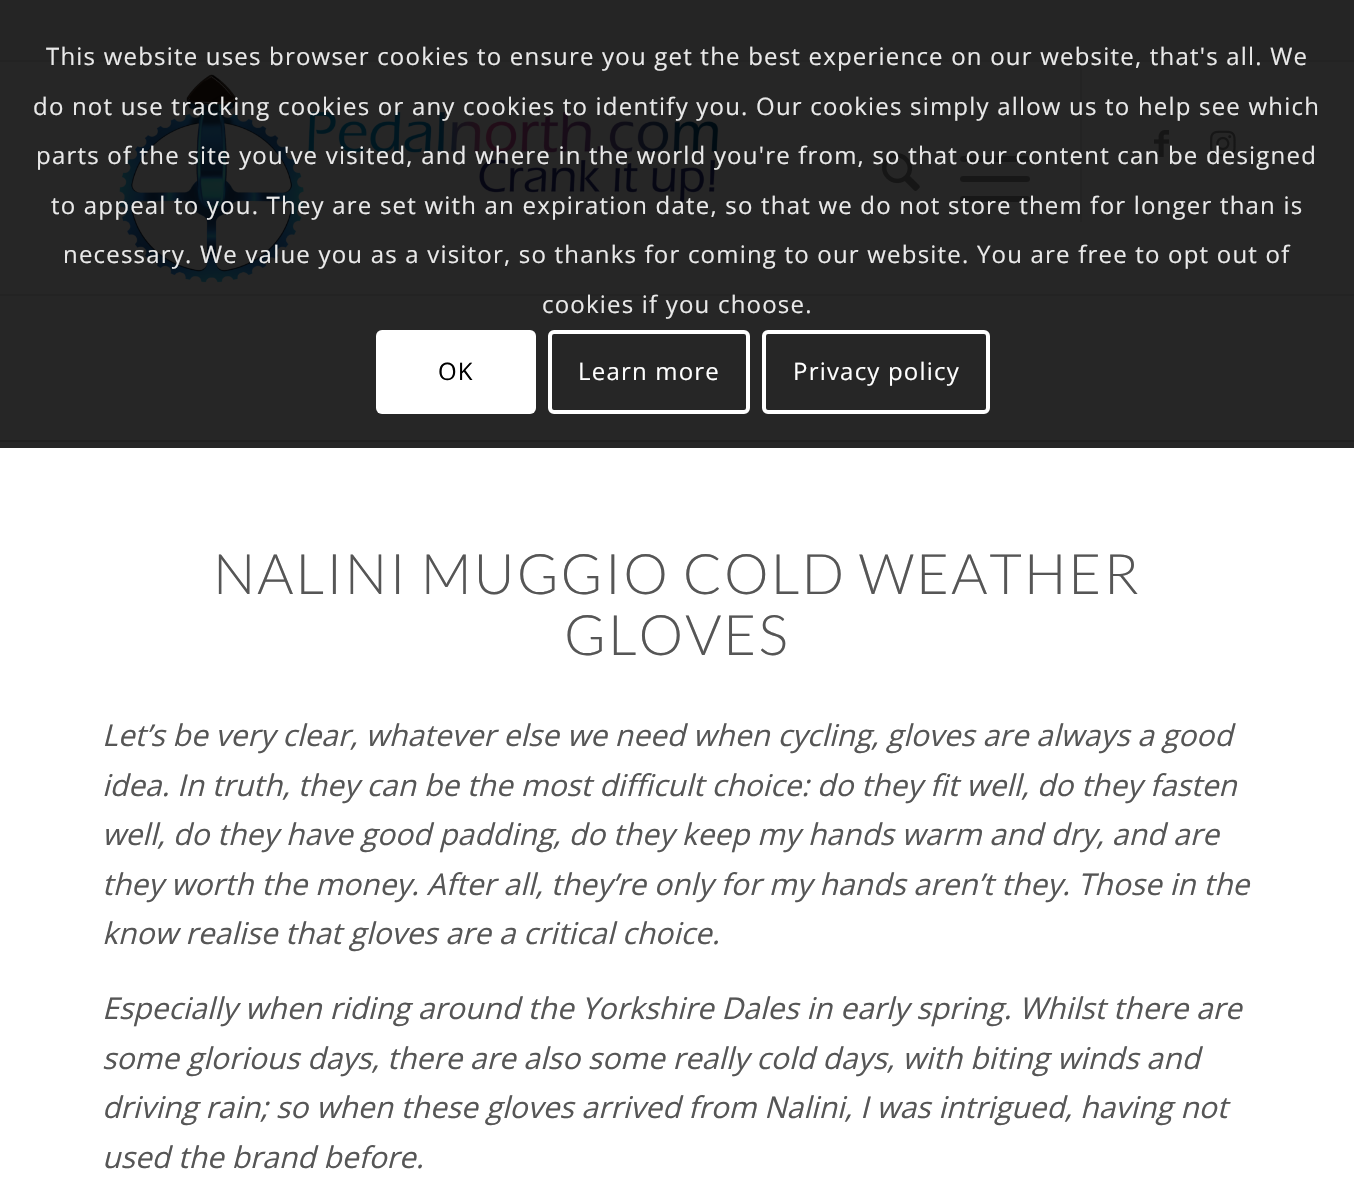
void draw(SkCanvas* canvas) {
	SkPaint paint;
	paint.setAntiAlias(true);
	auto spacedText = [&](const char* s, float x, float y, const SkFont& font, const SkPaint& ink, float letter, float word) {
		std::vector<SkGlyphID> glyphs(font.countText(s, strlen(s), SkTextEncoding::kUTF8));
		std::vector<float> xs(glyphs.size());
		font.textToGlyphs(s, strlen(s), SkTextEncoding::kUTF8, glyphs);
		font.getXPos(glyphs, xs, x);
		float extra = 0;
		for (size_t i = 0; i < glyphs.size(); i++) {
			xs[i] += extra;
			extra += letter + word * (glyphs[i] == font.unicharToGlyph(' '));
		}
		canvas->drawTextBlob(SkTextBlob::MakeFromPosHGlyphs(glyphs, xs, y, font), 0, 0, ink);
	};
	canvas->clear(0xffffffff);
	paint.setColor(0xff262626);
	canvas->drawRect(SkRect::MakeXYWH(0, 62, 1354, 386), paint);
	paint.setColor(0xff252525);
	canvas->drawRect(SkRect::MakeXYWH(0, 0, 1354, 60), paint);
	paint.setColor(0xff232323);
	canvas->drawRect(SkRect::MakeXYWH(0, 60, 1354, 2), paint);
	canvas->drawRect(SkRect::MakeXYWH(1080, 62, 2, 160), paint);
	SkFont f1(fontMgr->matchFamilyStyle("Open Sans", SkFontStyle::Normal()), 24);
	f1.setSubpixel(true);
	paint.setColor(0xffe9e9e9);
	spacedText("This website uses browser cookies to ensure you get the best experience on our website, that's all. We", 46, 65, f1, paint, 1.2, 0);
	canvas->drawImageRect(SkImages::DeferredFromEncodedData(SkData::MakeFromFileName("img1.png")), SkRect::MakeXYWH(119, 74, 600, 209), SkSamplingOptions());
	spacedText("do not use tracking cookies or any cookies to identify you. Our cookies simply allow us to help see which", 33, 115, f1, paint, 1.2, 0);
	canvas->drawImageRect(SkImages::DeferredFromEncodedData(SkData::MakeFromFileName("img2.png")), SkRect::MakeXYWH(882, 153, 38, 38), SkSamplingOptions());
	paint.setColor(0xff171717);
	canvas->drawRoundRect(SkRect::MakeXYWH(960, 156, 70, 6), 3, 3, paint);
	canvas->drawImageRect(SkImages::DeferredFromEncodedData(SkData::MakeFromFileName("img3.png")), SkRect::MakeXYWH(1154, 130, 15, 27), SkSamplingOptions());
	canvas->drawImageRect(SkImages::DeferredFromEncodedData(SkData::MakeFromFileName("img4.png")), SkRect::MakeXYWH(1210, 130, 26, 27), SkSamplingOptions());
	paint.setColor(0xffe9e9e9);
	spacedText("parts of the site you've visited, and where in the world you're from, so that our content can be designed", 36, 164, f1, paint, 1.2, 0);
	paint.setColor(0xff171717);
	canvas->drawRoundRect(SkRect::MakeXYWH(960, 196, 70, 6), 3, 3, paint);
	paint.setColor(0xffe9e9e9);
	spacedText("to appeal to you. They are set with an expiration date, so that we do not store them for longer than is", 51, 214, f1, paint, 1.2, 0);
	spacedText("necessary. We value you as a visitor, so thanks for coming to our website. You are free to opt out of", 63, 263, f1, paint, 1.2, 0);
	paint.setColor(0xff232323);
	canvas->drawRect(SkRect::MakeXYWH(0, 294, 1354, 2), paint);
	paint.setColor(0xffe9e9e9);
	spacedText("cookies if you choose.", 542, 313, f1, paint, 1.2, 0);
	paint.setColor(0xffffffff);
	canvas->drawRoundRect(SkRect::MakeXYWH(376, 330, 160, 84), 6, 6, paint);
	paint.setColor(0xff000000);
	spacedText("OK", 438, 380, f1, paint, 1.2, 0);
	paint.setStroke(true);
	paint.setStrokeWidth(4);
	paint.setColor(0xffffffff);
	canvas->drawRoundRect(SkRect::MakeXYWH(550, 332, 198, 80), 4, 4, paint);
	paint.setStroke(false);
	spacedText("Learn more", 578, 380, f1, paint, 1.2, 0);
	paint.setStroke(true);
	canvas->drawRoundRect(SkRect::MakeXYWH(764, 332, 224, 80), 4, 4, paint);
	paint.setStroke(false);
	spacedText("Privacy policy", 793, 380, f1, paint, 1.2, 0);
	paint.setColor(0xff171717);
	canvas->drawRoundRect(SkRect::MakeXYWH(960, 176, 70, 6), 3, 3, paint);
	paint.setColor(0xff202020);
	canvas->drawRect(SkRect::MakeXYWH(0, 440, 1354, 2), paint);
	SkFont f2(fontMgr->matchFamilyStyle("Lato", SkFontStyle(300, SkFontStyle::kNormal_Width, SkFontStyle::kUpright_Slant)), 56);
	f2.setSubpixel(true);
	paint.setColor(0xff565656);
	spacedText("NALINI MUGGIO COLD WEATHER", 213, 594, f2, paint, 2, 0);
	spacedText("GLOVES", 564, 655, f2, paint, 2, 0);
	SkFont f3(fontMgr->matchFamilyStyle("Open Sans", SkFontStyle::Italic()), 30);
	f3.setSubpixel(true);
	canvas->drawString("Let’s be very clear, whatever else we need when cycling, gloves are always a good", 102, 746, f3, paint);
	canvas->drawString("idea. In truth, they can be the most difficult choice: do they fit well, do they fasten", 102, 796, f3, paint);
	canvas->drawString("well, do they have good padding, do they keep my hands warm and dry, and are", 102, 845, f3, paint);
	canvas->drawString("they worth the money. After all, they’re only for my hands aren’t they. Those in the", 102, 895, f3, paint);
	canvas->drawString("know realise that gloves are a critical choice.", 102, 944, f3, paint);
	canvas->drawString("Especially when riding around the Yorkshire Dales in early spring. Whilst there are", 102, 1019, f3, paint);
	canvas->drawString("some glorious days, there are also some really cold days, with biting winds and", 102, 1069, f3, paint);
	canvas->drawString("driving rain; so when these gloves arrived from Nalini, I was intrigued, having not", 102, 1118, f3, paint);
	canvas->drawString("used the brand before.", 102, 1168, f3, paint);
}
